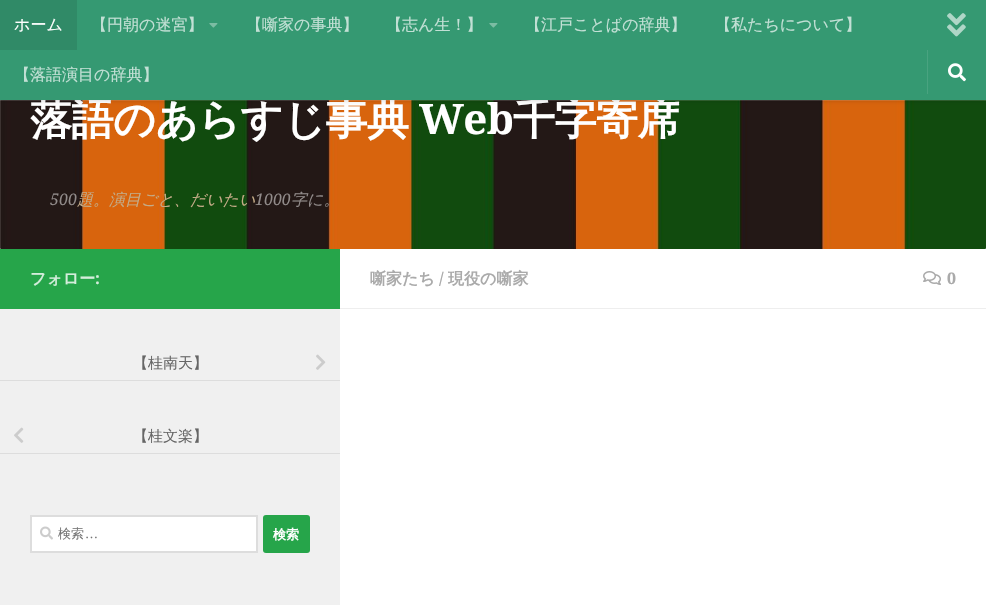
void draw(SkCanvas* canvas) {
	SkPaint paint;
	paint.setAntiAlias(true);
	auto spacedText = [&](const char* s, float x, float y, const SkFont& font, const SkPaint& ink, float letter, float word) {
		std::vector<SkGlyphID> glyphs(font.countText(s, strlen(s), SkTextEncoding::kUTF8));
		std::vector<float> xs(glyphs.size());
		font.textToGlyphs(s, strlen(s), SkTextEncoding::kUTF8, glyphs);
		font.getXPos(glyphs, xs, x);
		float extra = 0;
		for (size_t i = 0; i < glyphs.size(); i++) {
			xs[i] += extra;
			extra += letter + word * (glyphs[i] == font.unicharToGlyph(' '));
		}
		canvas->drawTextBlob(SkTextBlob::MakeFromPosHGlyphs(glyphs, xs, y, font), 0, 0, ink);
	};
	canvas->clear(0xffffffff);
	canvas->drawImageRect(SkImages::DeferredFromEncodedData(SkData::MakeFromFileName("img4.png")), SkRect::MakeXYWH(0, 100, 986, 149), SkSamplingOptions());
	SkFont f1(fontMgr->matchFamilyStyle("WenQuanYi Zen Hei", SkFontStyle::Bold()), 42);
	f1.setSubpixel(true);
	paint.setColor(0xffffffff);
	spacedText("落語のあらすじ事典", 30, 134, f1, paint, -0.5, 0);
	spacedText("千字寄席", 513, 134, f1, paint, -0.5, 0);
	paint.setColor(0x26ffffff);
	canvas->drawRect(SkRect::MakeXYWH(0, 100, 986, 1), paint);
	paint.setColor(0x33000000);
	paint.setMaskFilter(SkMaskFilter::MakeBlur(kNormal_SkBlurStyle, 2.5));
	canvas->drawRect(SkRect::MakeXYWH(0, 0, 986, 100), paint);
	paint.setMaskFilter(nullptr);
	paint.setColor(0xff359972);
	canvas->drawRect(SkRect::MakeXYWH(0, 0, 986, 100), paint);
	paint.setColor(0xff308a67);
	canvas->drawRect(SkRect::MakeXYWH(0, 0, 77, 50), paint);
	SkFont f2(fontMgr->matchFamilyStyle("WenQuanYi Zen Hei", SkFontStyle(500, SkFontStyle::kNormal_Width, SkFontStyle::kUpright_Slant)), 16);
	f2.setSubpixel(true);
	paint.setColor(0xffffffff);
	canvas->drawString("ホーム", 14, 30, f2, paint);
	paint.setColor(0xffc2e0d5);
	canvas->drawString("【円朝の迷宮】", 91, 30, f2, paint);
	canvas->drawImageRect(SkImages::DeferredFromEncodedData(SkData::MakeFromFileName("img1.png")), SkRect::MakeXYWH(209, 23, 9, 5), SkSamplingOptions());
	canvas->drawString("【噺家の事典】", 246, 30, f2, paint);
	canvas->drawString("【志ん生！】", 386, 30, f2, paint);
	canvas->drawImageRect(SkImages::DeferredFromEncodedData(SkData::MakeFromFileName("img1.png")), SkRect::MakeXYWH(489, 23, 9, 5), SkSamplingOptions());
	canvas->drawString("【江戸ことばの辞典】", 525, 30, f2, paint);
	canvas->drawString("【私たちについて】", 715, 30, f2, paint);
	canvas->drawString("【落語演目の辞典】", 14, 80, f2, paint);
	canvas->drawImageRect(SkImages::DeferredFromEncodedData(SkData::MakeFromFileName("img2.png")), SkRect::MakeXYWH(947, 13, 19, 24), SkSamplingOptions());
	paint.setColor(0xff49a380);
	canvas->drawRect(SkRect::MakeXYWH(927, 50, 1, 44), paint);
	canvas->drawImageRect(SkImages::DeferredFromEncodedData(SkData::MakeFromFileName("img3.png")), SkRect::MakeXYWH(948, 63, 18, 19), SkSamplingOptions());
	SkFont f3(fontMgr->matchFamilyStyle("Droid Serif", SkFontStyle::Bold()), 42);
	f3.setSubpixel(true);
	paint.setColor(0xffffffff);
	spacedText("Web", 419, 134, f3, paint, -0.5, 0);
	SkFont f4(fontMgr->matchFamilyStyle("Droid Serif", SkFontStyle::Italic()), 16);
	f4.setSubpixel(true);
	paint.setColor(0xff918b8a);
	canvas->drawString("500", 50, 205, f4, paint);
	SkFont f5(fontMgr->matchFamilyStyle("WenQuanYi Zen Hei", SkFontStyle(500, SkFontStyle::kNormal_Width, SkFontStyle::kItalic_Slant)), 16);
	f5.setSubpixel(true);
	paint.setColor(0xffc4ab87);
	canvas->drawString("題。演目ごと、だいたい", 77, 205, f5, paint);
	paint.setColor(0xff918b8a);
	canvas->drawString("1000", 255, 205, f4, paint);
	canvas->drawString("字に。", 291, 205, f5, paint);
	paint.setColor(0xff26a54a);
	canvas->drawRect(SkRect::MakeXYWH(0, 249, 340, 60), paint);
	SkFont f6(fontMgr->matchFamilyStyle("WenQuanYi Zen Hei", SkFontStyle::Bold()), 16);
	f6.setSubpixel(true);
	paint.setColor(0xffd4eddb);
	canvas->drawString("フォロー", 30, 284, f6, paint);
	SkFont f7(fontMgr->matchFamilyStyle("Droid Serif", SkFontStyle::Bold()), 16);
	f7.setSubpixel(true);
	canvas->drawString(":", 95, 284, f7, paint);
	paint.setColor(0xfff0f0f0);
	canvas->drawRect(SkRect::MakeXYWH(0, 309, 340, 296), paint);
	paint.setColor(0xffdddddd);
	canvas->drawRect(SkRect::MakeXYWH(0, 380, 340, 1), paint);
	SkFont f8(fontMgr->matchFamilyStyle("WenQuanYi Zen Hei", SkFontStyle(500, SkFontStyle::kNormal_Width, SkFontStyle::kUpright_Slant)), 15);
	f8.setSubpixel(true);
	paint.setColor(0xff666666);
	canvas->drawString("【桂南天】", 133, 368, f8, paint);
	canvas->drawImageRect(SkImages::DeferredFromEncodedData(SkData::MakeFromFileName("img5.png")), SkRect::MakeXYWH(316, 354, 10, 16), SkSamplingOptions());
	paint.setColor(0xffdddddd);
	canvas->drawRect(SkRect::MakeXYWH(0, 453, 340, 1), paint);
	canvas->drawImageRect(SkImages::DeferredFromEncodedData(SkData::MakeFromFileName("img6.png")), SkRect::MakeXYWH(14, 427, 10, 16), SkSamplingOptions());
	paint.setColor(0xff666666);
	canvas->drawString("【桂文楽】", 133, 441, f8, paint);
	paint.setColor(0xffffffff);
	canvas->drawRect(SkRect::MakeXYWH(31, 516, 226, 36), paint);
	paint.setStroke(true);
	paint.setStrokeWidth(2);
	paint.setColor(0xffdddddd);
	canvas->drawRect(SkRect::MakeXYWH(31, 516, 226, 36), paint);
	canvas->drawImageRect(SkImages::DeferredFromEncodedData(SkData::MakeFromFileName("img7.png")), SkRect::MakeXYWH(40, 526, 13, 14), SkSamplingOptions());
	SkFont f9(fontMgr->matchFamilyStyle("WenQuanYi Zen Hei", SkFontStyle(500, SkFontStyle::kNormal_Width, SkFontStyle::kUpright_Slant)), 13);
	f9.setSubpixel(true);
	paint.setStroke(false);
	paint.setColor(0xff757575);
	canvas->drawString("検索", 58, 538, f9, paint);
	SkFont f10(fontMgr->matchFamilyStyle("Liberation Serif", SkFontStyle::Normal()), 13);
	f10.setSubpixel(true);
	canvas->drawString("…", 85, 538, f10, paint);
	paint.setColor(0xff26a54a);
	canvas->drawRoundRect(SkRect::MakeXYWH(263, 515, 47, 38), 3, 3, paint);
	SkFont f11(fontMgr->matchFamilyStyle("WenQuanYi Zen Hei", SkFontStyle::Bold()), 13);
	f11.setSubpixel(true);
	paint.setColor(0xffffffff);
	canvas->drawString("検索", 273, 539, f11, paint);
	paint.setColor(0xffeeeeee);
	canvas->drawRect(SkRect::MakeXYWH(340, 308, 646, 1), paint);
	paint.setColor(0xffaaaaaa);
	canvas->drawString("噺家たち", 370, 284, f6, paint);
	canvas->drawString("/", 439, 284, f7, paint);
	canvas->drawString("現役の噺家", 448, 284, f6, paint);
	canvas->drawImageRect(SkImages::DeferredFromEncodedData(SkData::MakeFromFileName("img8.png")), SkRect::MakeXYWH(923, 271, 18, 14), SkSamplingOptions());
	canvas->drawString("0", 947, 284, f7, paint);
}
